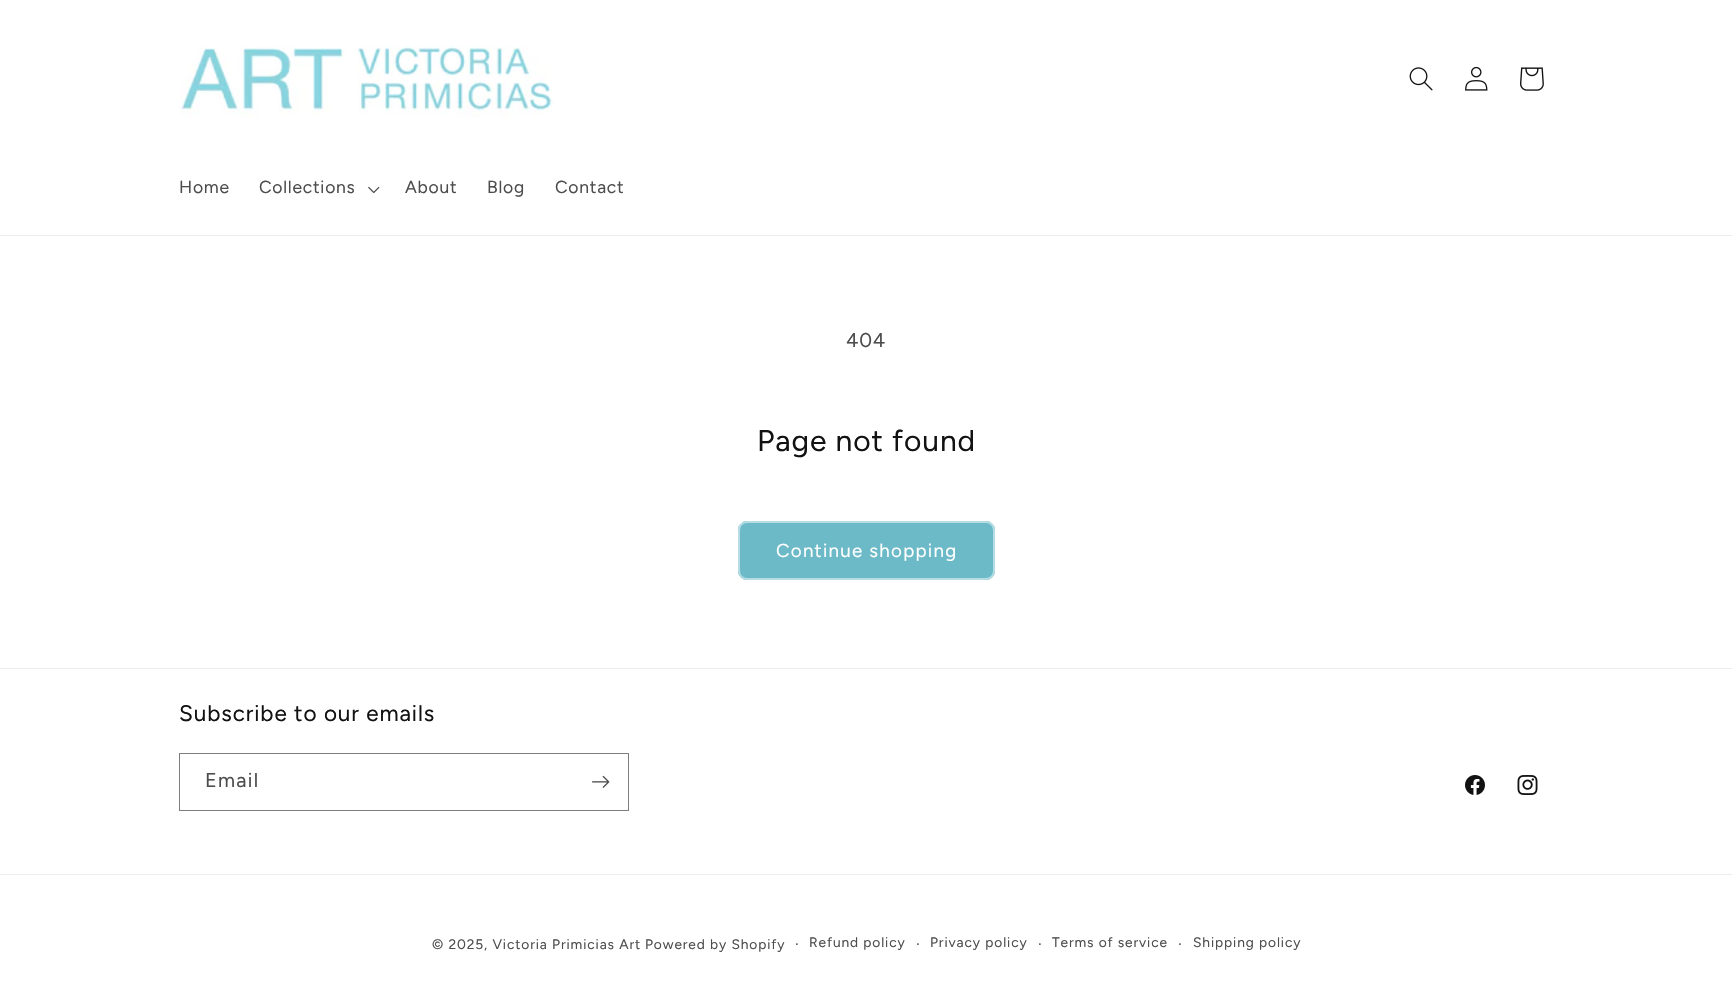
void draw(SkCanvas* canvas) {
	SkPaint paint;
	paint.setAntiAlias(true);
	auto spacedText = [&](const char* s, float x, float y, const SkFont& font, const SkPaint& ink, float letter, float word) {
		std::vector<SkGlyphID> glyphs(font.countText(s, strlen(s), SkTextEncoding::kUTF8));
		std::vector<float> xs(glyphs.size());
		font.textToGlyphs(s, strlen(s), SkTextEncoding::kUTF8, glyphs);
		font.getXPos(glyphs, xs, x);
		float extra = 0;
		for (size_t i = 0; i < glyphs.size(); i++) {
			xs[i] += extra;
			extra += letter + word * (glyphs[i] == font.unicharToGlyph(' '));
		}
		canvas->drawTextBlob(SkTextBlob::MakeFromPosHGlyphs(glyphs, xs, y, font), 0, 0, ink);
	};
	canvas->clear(0xffffffff);
	paint.setColor(0xffececec);
	canvas->drawRect(SkRect::MakeXYWH(0, 235, 1732, 1), paint);
	canvas->drawImageRect(SkImages::DeferredFromEncodedData(SkData::MakeFromFileName("img1.png")), SkRect::MakeXYWH(180, 46, 374, 71), SkSamplingOptions());
	canvas->drawImageRect(SkImages::DeferredFromEncodedData(SkData::MakeFromFileName("img2.png")), SkRect::MakeXYWH(1409, 67, 24, 24), SkSamplingOptions());
	canvas->drawImageRect(SkImages::DeferredFromEncodedData(SkData::MakeFromFileName("img3.png")), SkRect::MakeXYWH(1465, 66, 23, 25), SkSamplingOptions());
	canvas->drawImageRect(SkImages::DeferredFromEncodedData(SkData::MakeFromFileName("img4.png")), SkRect::MakeXYWH(1520, 67, 24, 24), SkSamplingOptions());
	SkFont f1(fontMgr->matchFamilyStyle("Figtree", SkFontStyle::Normal()), 17.5);
	f1.setSubpixel(true);
	paint.setColor(0xff4d4d4d);
	spacedText("Home", 179, 193, f1, paint, 0.75, 0);
	spacedText("Collections", 259, 193, f1, paint, 0.75, 0);
	canvas->drawImageRect(SkImages::DeferredFromEncodedData(SkData::MakeFromFileName("img5.png")), SkRect::MakeXYWH(368, 186, 12, 8), SkSamplingOptions());
	spacedText("About", 405, 193, f1, paint, 0.75, 0);
	spacedText("Blog", 487, 193, f1, paint, 0.75, 0);
	spacedText("Contact", 555, 193, f1, paint, 0.75, 0);
	SkFont f2(fontMgr->matchFamilyStyle("Figtree", SkFontStyle::Normal()), 20);
	f2.setSubpixel(true);
	spacedText("404", 846, 347, f2, paint, 0.75, 0);
	SkFont f3(fontMgr->matchFamilyStyle("Figtree", SkFontStyle::Normal()), 30);
	f3.setSubpixel(true);
	paint.setColor(0xff121212);
	spacedText("Page not found", 757, 451, f3, paint, 0.9, 0);
	paint.setColor(0xff6cbac7);
	canvas->drawRoundRect(SkRect::MakeXYWH(738, 521, 257, 59), 9, 9, paint);
	paint.setStroke(true);
	paint.setStrokeWidth(1);
	canvas->drawRoundRect(SkRect::MakeXYWH(738.5, 521.5, 256, 58), 8.5, 8.5, paint);
	paint.setStrokeWidth(2);
	paint.setColor(0x80ffffff);
	canvas->drawRoundRect(SkRect::MakeXYWH(739, 522, 255, 57), 8, 8, paint);
	SkFont f4(fontMgr->matchFamilyStyle("Figtree", SkFontStyle::Normal()), 18.75);
	f4.setSubpixel(true);
	paint.setStroke(false);
	paint.setColor(0xffffffff);
	spacedText("Continue shopping", 776, 557, f4, paint, 1.25, 0);
	paint.setColor(0xffececec);
	canvas->drawRect(SkRect::MakeXYWH(0, 668, 1732, 1), paint);
	SkFont f5(fontMgr->matchFamilyStyle("Figtree", SkFontStyle::Normal()), 22.5);
	f5.setSubpixel(true);
	paint.setColor(0xff121212);
	spacedText("Subscribe to our emails", 179, 721, f5, paint, 0.9, 0);
	paint.setStroke(true);
	paint.setStrokeWidth(1);
	paint.setColor(0xff7d7d7d);
	canvas->drawRect(SkRect::MakeXYWH(179.5, 753.5, 449, 57), paint);
	paint.setStroke(false);
	paint.setColor(0xff4d4d4d);
	spacedText("Email", 205, 787, f2, paint, 1.25, 0);
	canvas->drawImageRect(SkImages::DeferredFromEncodedData(SkData::MakeFromFileName("img6.png")), SkRect::MakeXYWH(592, 775, 18, 13), SkSamplingOptions());
	canvas->drawImageRect(SkImages::DeferredFromEncodedData(SkData::MakeFromFileName("img7.png")), SkRect::MakeXYWH(1465, 775, 20, 20), SkSamplingOptions());
	canvas->drawImageRect(SkImages::DeferredFromEncodedData(SkData::MakeFromFileName("img8.png")), SkRect::MakeXYWH(1517, 775, 21, 20), SkSamplingOptions());
	paint.setColor(0xffececec);
	canvas->drawRect(SkRect::MakeXYWH(0, 874, 1732, 1), paint);
	SkFont f6(fontMgr->matchFamilyStyle("Figtree", SkFontStyle::Normal()), 13.75);
	f6.setSubpixel(true);
	paint.setColor(0xff4d4d4d);
	spacedText("© 2025, Victoria Primicias Art", 432, 949, f6, paint, 0.9, 0);
	spacedText("Powered by Shopify", 645, 949, f6, paint, 0.9, 0);
	SkFont f7(fontMgr->matchFamilyStyle("Figtree", SkFontStyle::Normal()), 15);
	f7.setSubpixel(true);
	spacedText("·", 795, 949, f7, paint, 0.9, 0);
	spacedText("Refund policy", 809, 947, f6, paint, 0.9, 0);
	spacedText("·", 916, 949, f7, paint, 0.9, 0);
	spacedText("Privacy policy", 930, 947, f6, paint, 0.9, 0);
	spacedText("·", 1038, 949, f7, paint, 0.9, 0);
	spacedText("Terms of service", 1052, 947, f6, paint, 0.9, 0);
	spacedText("·", 1178, 949, f7, paint, 0.9, 0);
	spacedText("Shipping policy", 1193, 947, f6, paint, 0.9, 0);
}
